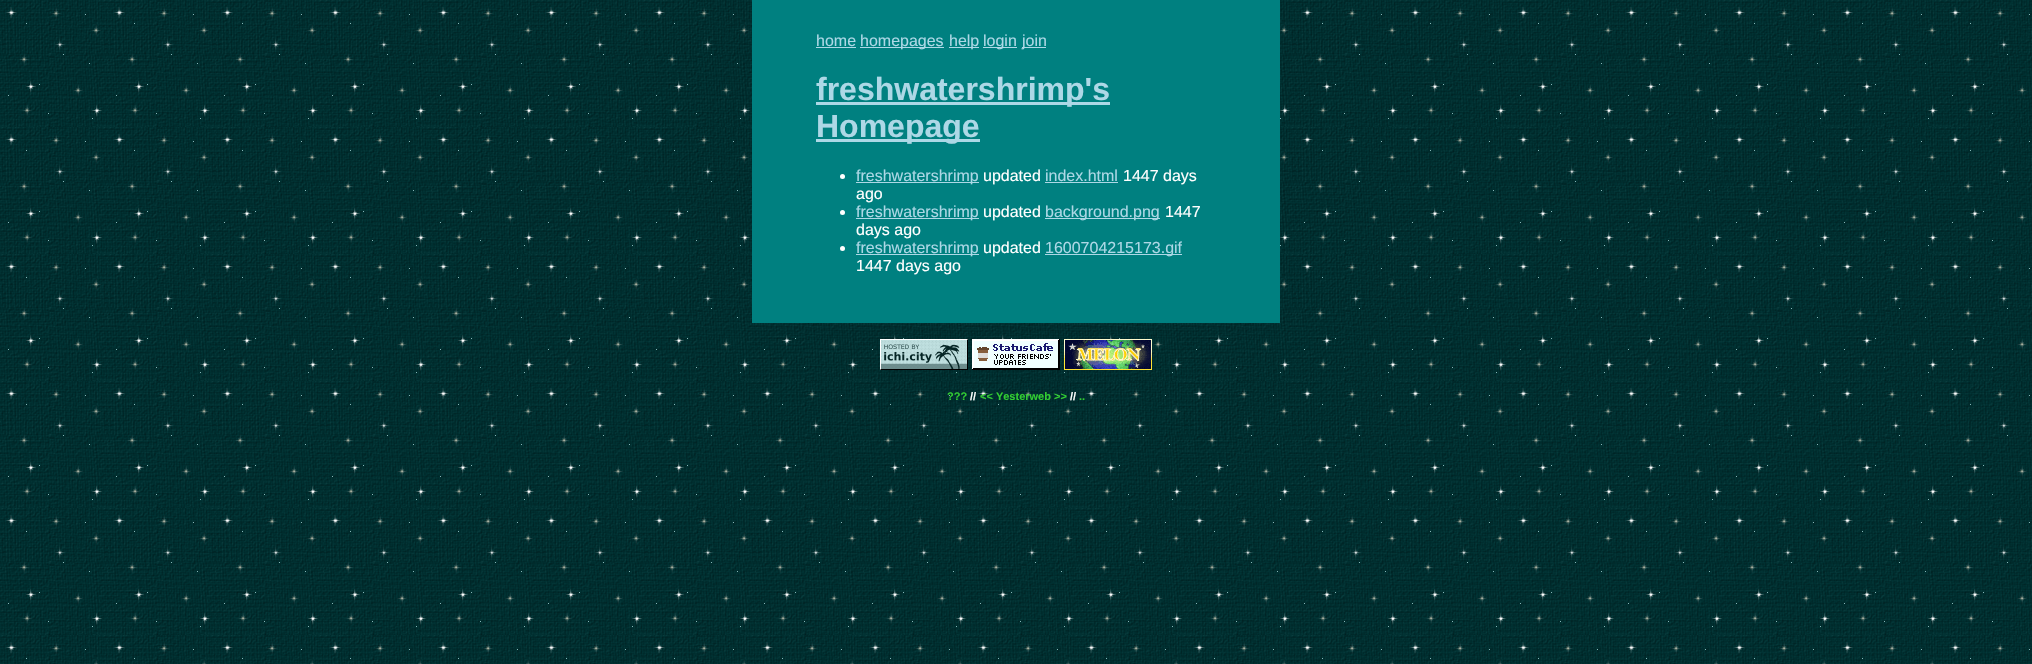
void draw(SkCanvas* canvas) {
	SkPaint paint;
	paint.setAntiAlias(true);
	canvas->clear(0xffffffff);
	canvas->drawImageRect(SkImages::DeferredFromEncodedData(SkData::MakeFromFileName("img1.png")), SkRect::MakeXYWH(0, 0, 2032, 664), SkSamplingOptions());
	paint.setColor(0xff008080);
	canvas->drawRect(SkRect::MakeXYWH(752, 0, 528, 323), paint);
	SkFont f1(fontMgr->matchFamilyStyle("Liberation Sans", SkFontStyle::Normal()), 16);
	f1.setSubpixel(true);
	paint.setColor(0xffadd8e6);
	canvas->drawString("home", 816, 46, f1, paint);
	canvas->drawRect(SkRect::MakeXYWH(816, 47, 40, 1), paint);
	canvas->drawRect(SkRect::MakeXYWH(860, 47, 84, 1), paint);
	canvas->drawString("homepages", 860, 46, f1, paint);
	canvas->drawRect(SkRect::MakeXYWH(949, 47, 30, 1), paint);
	canvas->drawString("help", 949, 46, f1, paint);
	canvas->drawRect(SkRect::MakeXYWH(983, 47, 34, 1), paint);
	canvas->drawString("login", 983, 46, f1, paint);
	canvas->drawRect(SkRect::MakeXYWH(1022, 47, 24, 1), paint);
	canvas->drawString("join", 1022, 46, f1, paint);
	canvas->drawRect(SkRect::MakeXYWH(816, 102, 294, 3), paint);
	SkFont f2(fontMgr->matchFamilyStyle("Liberation Sans", SkFontStyle::Bold()), 32);
	f2.setSubpixel(true);
	canvas->drawString("freshwatershrimp's", 816, 100, f2, paint);
	canvas->drawRect(SkRect::MakeXYWH(816, 139, 164, 3), paint);
	canvas->drawString("Homepage", 816, 137, f2, paint);
	paint.setColor(0xffffffff);
	canvas->drawCircle(842.5, 176.5, 2.5, paint);
	paint.setColor(0xffadd8e6);
	canvas->drawRect(SkRect::MakeXYWH(856, 182, 123, 1), paint);
	canvas->drawString("freshwatershrimp", 856, 181, f1, paint);
	paint.setColor(0xffffffff);
	canvas->drawString("updated", 983, 181, f1, paint);
	paint.setColor(0xffadd8e6);
	canvas->drawString("index.html", 1045, 181, f1, paint);
	canvas->drawRect(SkRect::MakeXYWH(1045, 182, 73, 1), paint);
	paint.setColor(0xffffffff);
	canvas->drawString("1447 days", 1123, 181, f1, paint);
	canvas->drawString("ago", 856, 199, f1, paint);
	canvas->drawCircle(842.5, 212.5, 2.5, paint);
	paint.setColor(0xffadd8e6);
	canvas->drawRect(SkRect::MakeXYWH(856, 218, 123, 1), paint);
	canvas->drawString("freshwatershrimp", 856, 217, f1, paint);
	paint.setColor(0xffffffff);
	canvas->drawString("updated", 983, 217, f1, paint);
	paint.setColor(0xffadd8e6);
	canvas->drawRect(SkRect::MakeXYWH(1045, 218, 115, 1), paint);
	canvas->drawString("background.png", 1045, 217, f1, paint);
	paint.setColor(0xffffffff);
	canvas->drawString("1447", 1165, 217, f1, paint);
	canvas->drawString("days ago", 856, 235, f1, paint);
	canvas->drawCircle(842.5, 248.5, 2.5, paint);
	paint.setColor(0xffadd8e6);
	canvas->drawRect(SkRect::MakeXYWH(856, 254, 123, 1), paint);
	canvas->drawString("freshwatershrimp", 856, 253, f1, paint);
	paint.setColor(0xffffffff);
	canvas->drawString("updated", 983, 253, f1, paint);
	paint.setColor(0xffadd8e6);
	canvas->drawRect(SkRect::MakeXYWH(1045, 254, 137, 1), paint);
	canvas->drawString("1600704215173.gif", 1045, 253, f1, paint);
	paint.setColor(0xffffffff);
	canvas->drawString("1447 days ago", 856, 271, f1, paint);
	canvas->drawImageRect(SkImages::DeferredFromEncodedData(SkData::MakeFromFileName("img2.png")), SkRect::MakeXYWH(880, 339, 88, 31), SkSamplingOptions());
	canvas->drawImageRect(SkImages::DeferredFromEncodedData(SkData::MakeFromFileName("img3.png")), SkRect::MakeXYWH(972, 339, 88, 31), SkSamplingOptions());
	canvas->drawImageRect(SkImages::DeferredFromEncodedData(SkData::MakeFromFileName("img4.png")), SkRect::MakeXYWH(1064, 339, 88, 31), SkSamplingOptions());
	SkFont f3(fontMgr->matchFamilyStyle("Liberation Sans", SkFontStyle::Bold()), 11);
	f3.setSubpixel(true);
	paint.setColor(0xff32cd32);
	canvas->drawString("?\077?", 947, 400, f3, paint);
	paint.setColor(0xffffffff);
	canvas->drawString("//", 970, 400, f3, paint);
	paint.setColor(0xff32cd32);
	canvas->drawString("<< Yesterweb >>", 980, 400, f3, paint);
	paint.setColor(0xffffffff);
	canvas->drawString("//", 1070, 400, f3, paint);
	paint.setColor(0xff32cd32);
	canvas->drawString("..", 1079, 400, f3, paint);
}
